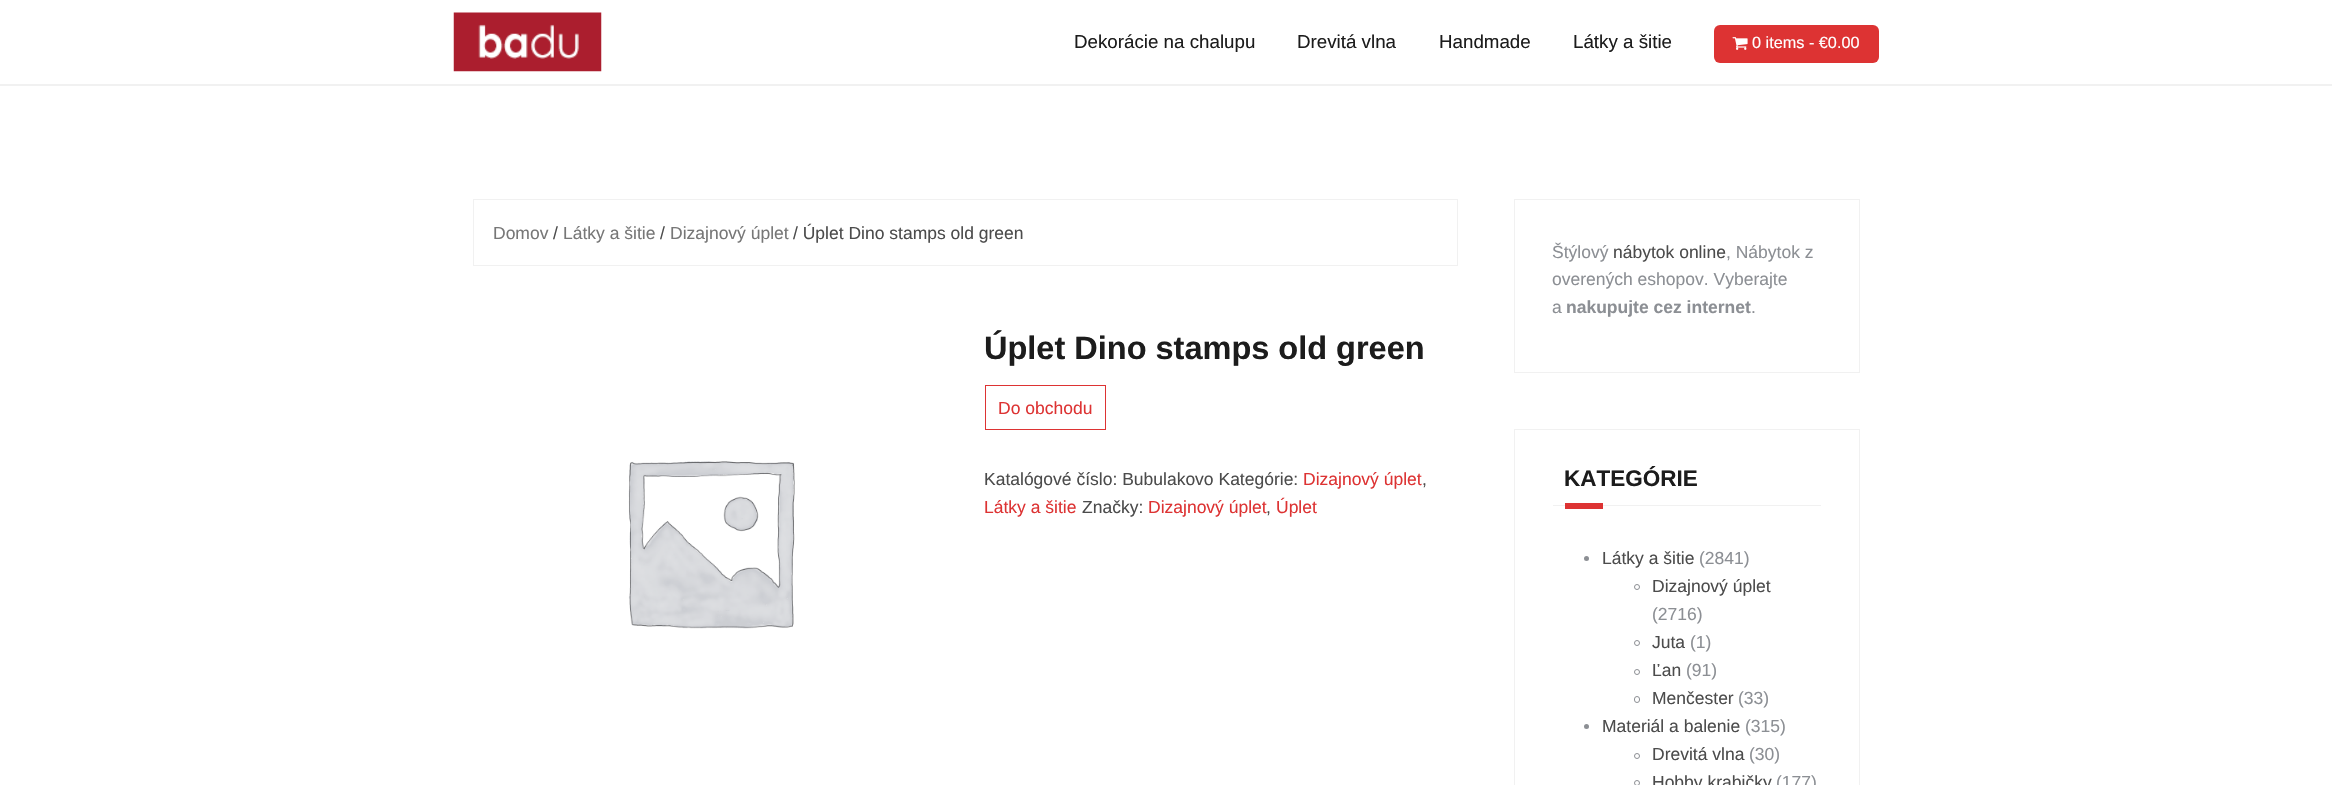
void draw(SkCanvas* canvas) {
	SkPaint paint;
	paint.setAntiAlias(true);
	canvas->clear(0xffffffff);
	canvas->drawImageRect(SkImages::DeferredFromEncodedData(SkData::MakeFromFileName("img1.png")), SkRect::MakeXYWH(453, 12, 149, 60), SkSamplingOptions());
	SkFont f1(fontMgr->matchFamilyStyle("Liberation Sans", SkFontStyle::Normal()), 18.75);
	f1.setSubpixel(true);
	paint.setColor(0xff1c1c1c);
	canvas->drawString("Dekorácie na chalupu", 1074, 48, f1, paint);
	canvas->drawString("Drevitá vlna", 1297, 48, f1, paint);
	canvas->drawString("Handmade", 1439, 48, f1, paint);
	canvas->drawString("Látky a šitie", 1573, 48, f1, paint);
	paint.setColor(0xffdd3333);
	canvas->drawRoundRect(SkRect::MakeXYWH(1714, 25, 165, 38), 6, 6, paint);
	canvas->drawImageRect(SkImages::DeferredFromEncodedData(SkData::MakeFromFileName("img2.png")), SkRect::MakeXYWH(1732, 37, 16, 13), SkSamplingOptions());
	SkFont f2(fontMgr->matchFamilyStyle("Liberation Sans", SkFontStyle::Normal()), 16.25);
	f2.setSubpixel(true);
	paint.setColor(0xffffffff);
	canvas->drawString("0 items - €0.00", 1752, 48, f2, paint);
	paint.setColor(0xfff1f1f1);
	canvas->drawRect(SkRect::MakeXYWH(0, 84, 2332, 2), paint);
	paint.setStroke(true);
	paint.setStrokeWidth(1);
	canvas->drawRect(SkRect::MakeXYWH(473.5, 199.5, 984, 66), paint);
	SkFont f3(fontMgr->matchFamilyStyle("Liberation Sans", SkFontStyle::Normal()), 17.5);
	f3.setSubpixel(true);
	paint.setStroke(false);
	paint.setColor(0xff777777);
	canvas->drawString("Domov", 493, 239, f3, paint);
	paint.setColor(0xff4c4c4c);
	canvas->drawString("/", 553, 239, f3, paint);
	paint.setColor(0xff777777);
	canvas->drawString("Látky a šitie", 563, 239, f3, paint);
	paint.setColor(0xff4c4c4c);
	canvas->drawString("/", 660, 239, f3, paint);
	paint.setColor(0xff777777);
	canvas->drawString("Dizajnový úplet", 670, 239, f3, paint);
	paint.setColor(0xff4c4c4c);
	canvas->drawString("/ Úplet Dino stamps old green", 793, 239, f3, paint);
	SkFont f4(fontMgr->matchFamilyStyle("Liberation Sans", SkFontStyle::Bold()), 32.5);
	f4.setSubpixel(true);
	paint.setColor(0xff1c1c1c);
	canvas->drawString("Úplet Dino stamps old green", 984, 359, f4, paint);
	paint.setStroke(true);
	paint.setColor(0xffdd3333);
	canvas->drawRect(SkRect::MakeXYWH(985.5, 385.5, 120, 44), paint);
	paint.setStroke(false);
	canvas->drawString("Do obchodu", 998, 414, f3, paint);
	paint.setColor(0xff4c4c4c);
	canvas->drawString("Katalógové číslo: Bubulakovo Kategórie:", 984, 485, f3, paint);
	paint.setColor(0xffdd3333);
	canvas->drawString("Dizajnový úplet", 1303, 485, f3, paint);
	paint.setColor(0xff4c4c4c);
	canvas->drawString(",", 1422, 485, f3, paint);
	paint.setColor(0xffdd3333);
	canvas->drawString("Látky a šitie", 984, 513, f3, paint);
	paint.setColor(0xff4c4c4c);
	canvas->drawString("Značky:", 1082, 513, f3, paint);
	paint.setColor(0xffdd3333);
	canvas->drawString("Dizajnový úplet", 1148, 513, f3, paint);
	paint.setColor(0xff4c4c4c);
	canvas->drawString(",", 1266, 513, f3, paint);
	paint.setColor(0xffdd3333);
	canvas->drawString("Úplet", 1276, 513, f3, paint);
	canvas->drawImageRect(SkImages::DeferredFromEncodedData(SkData::MakeFromFileName("img3.png")), SkRect::MakeXYWH(628, 461, 167, 168), SkSamplingOptions());
	paint.setStroke(true);
	paint.setColor(0xfff1f1f1);
	canvas->drawRect(SkRect::MakeXYWH(1514.5, 199.5, 345, 173), paint);
	paint.setStroke(false);
	paint.setColor(0xff8c8f94);
	canvas->drawString("Štýlový", 1552, 258, f3, paint);
	paint.setColor(0xff4c4c4c);
	canvas->drawString("nábytok online", 1613, 258, f3, paint);
	paint.setColor(0xff8c8f94);
	canvas->drawString(", Nábytok z", 1726, 258, f3, paint);
	canvas->drawString("overených eshopov. Vyberajte", 1552, 285, f3, paint);
	canvas->drawString("a", 1552, 313, f3, paint);
	SkFont f5(fontMgr->matchFamilyStyle("Liberation Sans", SkFontStyle::Bold()), 17.5);
	f5.setSubpixel(true);
	canvas->drawString("nakupujte cez internet", 1566, 313, f5, paint);
	canvas->drawString(".", 1751, 313, f3, paint);
	paint.setStroke(true);
	paint.setColor(0xfff1f1f1);
	canvas->drawRect(SkRect::MakeXYWH(1514.5, 429.5, 345, 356), paint);
	paint.setStroke(false);
	canvas->drawRect(SkRect::MakeXYWH(1553, 505, 268, 1), paint);
	SkFont f6(fontMgr->matchFamilyStyle("Liberation Sans", SkFontStyle::Bold()), 22.5);
	f6.setSubpixel(true);
	paint.setColor(0xff1c1c1c);
	canvas->drawString("KATEGÓRIE", 1564, 486, f6, paint);
	paint.setColor(0xffdd3333);
	canvas->drawRect(SkRect::MakeXYWH(1565, 503, 38, 6), paint);
	paint.setColor(0xff8c8f94);
	canvas->drawCircle(1586.5, 558.5, 2.5, paint);
	paint.setColor(0xff4c4c4c);
	canvas->drawString("Látky a šitie", 1602, 564, f3, paint);
	paint.setColor(0xff8c8f94);
	canvas->drawString("(2841)", 1699, 564, f3, paint);
	paint.setStroke(true);
	canvas->drawCircle(1637, 587, 2.5, paint);
	paint.setStroke(false);
	paint.setColor(0xff4c4c4c);
	canvas->drawString("Dizajnový úplet", 1652, 592, f3, paint);
	paint.setColor(0xff8c8f94);
	canvas->drawString("(2716)", 1652, 620, f3, paint);
	paint.setStroke(true);
	canvas->drawCircle(1637, 643, 2.5, paint);
	paint.setStroke(false);
	paint.setColor(0xff4c4c4c);
	canvas->drawString("Juta", 1652, 648, f3, paint);
	paint.setColor(0xff8c8f94);
	canvas->drawString("(1)", 1690, 648, f3, paint);
	paint.setStroke(true);
	canvas->drawCircle(1637, 672, 2.5, paint);
	paint.setStroke(false);
	paint.setColor(0xff4c4c4c);
	canvas->drawString("Ľan", 1652, 676, f3, paint);
	paint.setColor(0xff8c8f94);
	canvas->drawString("(91)", 1686, 676, f3, paint);
	paint.setStroke(true);
	canvas->drawRoundRect(SkRect::MakeXYWH(1634.5, 696.5, 5, 6), 2.5, 2.5, paint);
	paint.setStroke(false);
	paint.setColor(0xff4c4c4c);
	canvas->drawString("Menčester", 1652, 704, f3, paint);
	paint.setColor(0xff8c8f94);
	canvas->drawString("(33)", 1738, 704, f3, paint);
	canvas->drawCircle(1586.5, 726.5, 2.5, paint);
	paint.setColor(0xff4c4c4c);
	canvas->drawString("Materiál a balenie", 1602, 732, f3, paint);
	paint.setColor(0xff8c8f94);
	canvas->drawString("(315)", 1745, 732, f3, paint);
	paint.setStroke(true);
	canvas->drawCircle(1637, 756, 2.5, paint);
	paint.setStroke(false);
	paint.setColor(0xff4c4c4c);
	canvas->drawString("Drevitá vlna", 1652, 760, f3, paint);
	paint.setColor(0xff8c8f94);
	canvas->drawString("(30)", 1749, 760, f3, paint);
	paint.setStroke(true);
	canvas->drawCircle(1637, 783, 2.5, paint);
	paint.setStroke(false);
	paint.setColor(0xff4c4c4c);
	canvas->drawString("Hobby krabičky", 1652, 788, f3, paint);
	paint.setColor(0xff8c8f94);
	canvas->drawString("(177)", 1776, 788, f3, paint);
}
